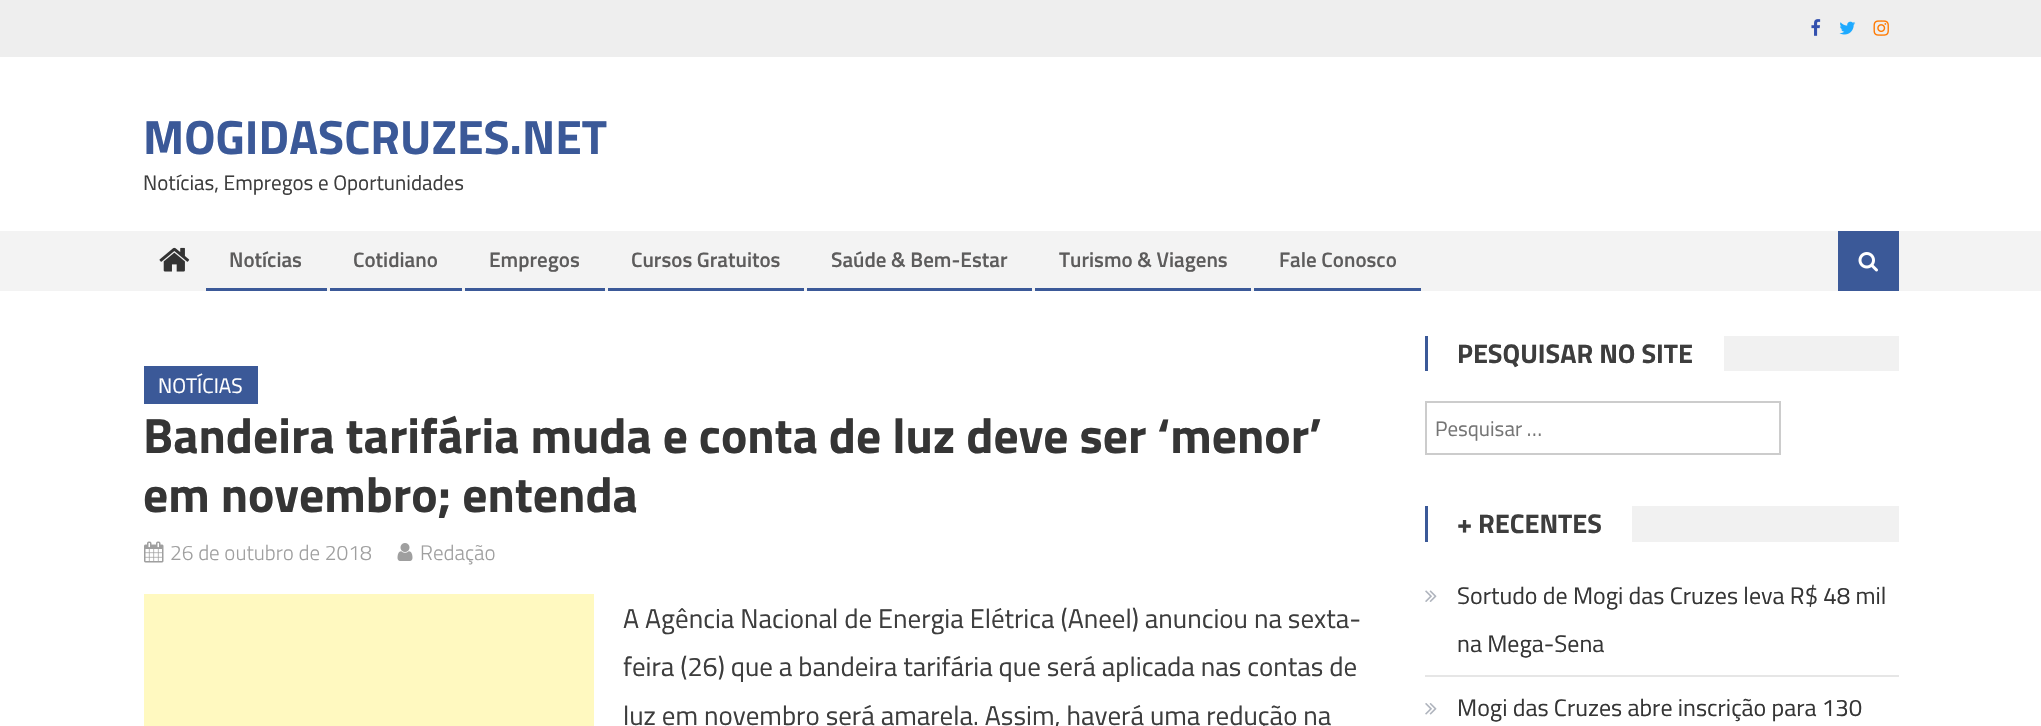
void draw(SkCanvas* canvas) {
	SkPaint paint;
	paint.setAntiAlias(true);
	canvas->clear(0xffffffff);
	paint.setColor(0xffeeeeee);
	canvas->drawRect(SkRect::MakeXYWH(0, 0, 2041, 57), paint);
	canvas->drawImageRect(SkImages::DeferredFromEncodedData(SkData::MakeFromFileName("img1.png")), SkRect::MakeXYWH(1811, 19, 10, 17), SkSamplingOptions());
	canvas->drawImageRect(SkImages::DeferredFromEncodedData(SkData::MakeFromFileName("img2.png")), SkRect::MakeXYWH(1839, 21, 17, 14), SkSamplingOptions());
	canvas->drawImageRect(SkImages::DeferredFromEncodedData(SkData::MakeFromFileName("img3.png")), SkRect::MakeXYWH(1873, 20, 16, 16), SkSamplingOptions());
	SkFont f1(fontMgr->matchFamilyStyle("Titillium Web", SkFontStyle::Bold()), 48);
	f1.setSubpixel(true);
	paint.setColor(0xff3b5998);
	canvas->drawString("MOGIDASCRUZES.NET", 143, 154, f1, paint);
	SkFont f2(fontMgr->matchFamilyStyle("Titillium Web", SkFontStyle::Normal()), 21);
	f2.setSubpixel(true);
	paint.setColor(0xff3d3d3d);
	canvas->drawString("Notícias, Empregos e Oportunidades", 143, 190, f2, paint);
	paint.setColor(0xfff3f3f3);
	canvas->drawRect(SkRect::MakeXYWH(0, 231, 2041, 60), paint);
	canvas->drawImageRect(SkImages::DeferredFromEncodedData(SkData::MakeFromFileName("img4.png")), SkRect::MakeXYWH(159, 247, 31, 25), SkSamplingOptions());
	paint.setColor(0xff3b5998);
	canvas->drawRect(SkRect::MakeXYWH(206, 288, 121, 3), paint);
	SkFont f3(fontMgr->matchFamilyStyle("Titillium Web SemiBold", SkFontStyle(600, SkFontStyle::kNormal_Width, SkFontStyle::kUpright_Slant)), 21);
	f3.setSubpixel(true);
	paint.setColor(0xff5d5c5c);
	canvas->drawString("Notícias", 229, 267, f3, paint);
	paint.setColor(0xff3b5998);
	canvas->drawRect(SkRect::MakeXYWH(330, 288, 132, 3), paint);
	paint.setColor(0xff5d5c5c);
	canvas->drawString("Cotidiano", 353, 267, f3, paint);
	paint.setColor(0xff3b5998);
	canvas->drawRect(SkRect::MakeXYWH(465, 288, 140, 3), paint);
	paint.setColor(0xff5d5c5c);
	canvas->drawString("Empregos", 489, 267, f3, paint);
	paint.setColor(0xff3b5998);
	canvas->drawRect(SkRect::MakeXYWH(608, 288, 196, 3), paint);
	paint.setColor(0xff5d5c5c);
	canvas->drawString("Cursos Gratuitos", 631, 267, f3, paint);
	paint.setColor(0xff3b5998);
	canvas->drawRect(SkRect::MakeXYWH(807, 288, 225, 3), paint);
	paint.setColor(0xff5d5c5c);
	canvas->drawString("Saúde & Bem-Estar", 831, 267, f3, paint);
	paint.setColor(0xff3b5998);
	canvas->drawRect(SkRect::MakeXYWH(1035, 288, 216, 3), paint);
	paint.setColor(0xff5d5c5c);
	canvas->drawString("Turismo & Viagens", 1059, 267, f3, paint);
	paint.setColor(0xff3b5998);
	canvas->drawRect(SkRect::MakeXYWH(1254, 288, 167, 3), paint);
	paint.setColor(0xff5d5c5c);
	canvas->drawString("Fale Conosco", 1279, 267, f3, paint);
	paint.setColor(0xff3b5998);
	canvas->drawRect(SkRect::MakeXYWH(1838, 231, 61, 60), paint);
	canvas->drawImageRect(SkImages::DeferredFromEncodedData(SkData::MakeFromFileName("img5.png")), SkRect::MakeXYWH(1858, 252, 20, 20), SkSamplingOptions());
	canvas->drawRect(SkRect::MakeXYWH(144, 366, 114, 38), paint);
	paint.setColor(0xffffffff);
	canvas->drawString("NOTÍCIAS", 158, 393, f2, paint);
	SkFont f4(fontMgr->matchFamilyStyle("Titillium Web", SkFontStyle::Bold()), 49.5);
	f4.setSubpixel(true);
	paint.setColor(0xff353535);
	canvas->drawString("Bandeira tarifária muda e conta de luz deve ser ‘menor’", 143, 453, f4, paint);
	canvas->drawString("em novembro; entenda", 143, 512, f4, paint);
	canvas->drawImageRect(SkImages::DeferredFromEncodedData(SkData::MakeFromFileName("img6.png")), SkRect::MakeXYWH(144, 541, 20, 22), SkSamplingOptions());
	SkFont f5(fontMgr->matchFamilyStyle("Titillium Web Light", SkFontStyle(300, SkFontStyle::kNormal_Width, SkFontStyle::kUpright_Slant)), 21);
	f5.setSubpixel(true);
	paint.setColor(0xff9f9f9f);
	canvas->drawString("26 de outubro de 2018", 170, 560, f5, paint);
	canvas->drawImageRect(SkImages::DeferredFromEncodedData(SkData::MakeFromFileName("img7.png")), SkRect::MakeXYWH(397, 543, 16, 18), SkSamplingOptions());
	canvas->drawString("Redação", 420, 560, f5, paint);
	paint.setColor(0xfffff9c0);
	canvas->drawRect(SkRect::MakeXYWH(144, 594, 450, 132), paint);
	SkFont f6(fontMgr->matchFamilyStyle("Titillium Web", SkFontStyle::Normal()), 27);
	f6.setSubpixel(true);
	paint.setColor(0xff3d3d3d);
	canvas->drawString("A Agência Nacional de Energia Elétrica (Aneel) anunciou na sexta-", 623, 628, f6, paint);
	canvas->drawString("feira (26) que a bandeira tarifária que será aplicada nas contas de", 623, 676, f6, paint);
	canvas->drawString("luz em novembro será amarela. Assim, haverá uma redução na", 623, 725, f6, paint);
	paint.setColor(0xfff1f1f1);
	canvas->drawRect(SkRect::MakeXYWH(1724, 336, 175, 35), paint);
	paint.setColor(0xff3b5998);
	canvas->drawRect(SkRect::MakeXYWH(1425, 336, 3, 35), paint);
	SkFont f7(fontMgr->matchFamilyStyle("Titillium Web", SkFontStyle::Bold()), 27);
	f7.setSubpixel(true);
	paint.setColor(0xff3d3d3d);
	canvas->drawString("PESQUISAR NO SITE", 1457, 363, f7, paint);
	paint.setStroke(true);
	paint.setStrokeWidth(2);
	paint.setColor(0xffcccccc);
	canvas->drawRect(SkRect::MakeXYWH(1426, 402, 354, 52), paint);
	paint.setStroke(false);
	paint.setColor(0xff757575);
	canvas->drawString("Pesquisar …", 1435, 436, f2, paint);
	paint.setColor(0xfff1f1f1);
	canvas->drawRect(SkRect::MakeXYWH(1632, 506, 267, 36), paint);
	paint.setColor(0xff3b5998);
	canvas->drawRect(SkRect::MakeXYWH(1425, 506, 3, 36), paint);
	paint.setColor(0xff3d3d3d);
	canvas->drawString("+ RECENTES", 1457, 533, f7, paint);
	paint.setColor(0xffe6e6e6);
	canvas->drawRect(SkRect::MakeXYWH(1425, 675, 474, 2), paint);
	canvas->drawImageRect(SkImages::DeferredFromEncodedData(SkData::MakeFromFileName("img8.png")), SkRect::MakeXYWH(1425, 590, 12, 12), SkSamplingOptions());
	SkFont f8(fontMgr->matchFamilyStyle("Titillium Web", SkFontStyle::Normal()), 24);
	f8.setSubpixel(true);
	paint.setColor(0xff353535);
	canvas->drawString("Sortudo de Mogi das Cruzes leva R$ 48 mil", 1457, 604, f8, paint);
	canvas->drawString("na Mega-Sena", 1457, 652, f8, paint);
	canvas->drawImageRect(SkImages::DeferredFromEncodedData(SkData::MakeFromFileName("img9.png")), SkRect::MakeXYWH(1425, 703, 12, 12), SkSamplingOptions());
	canvas->drawString("Mogi das Cruzes abre inscrição para 130", 1457, 716, f8, paint);
}
